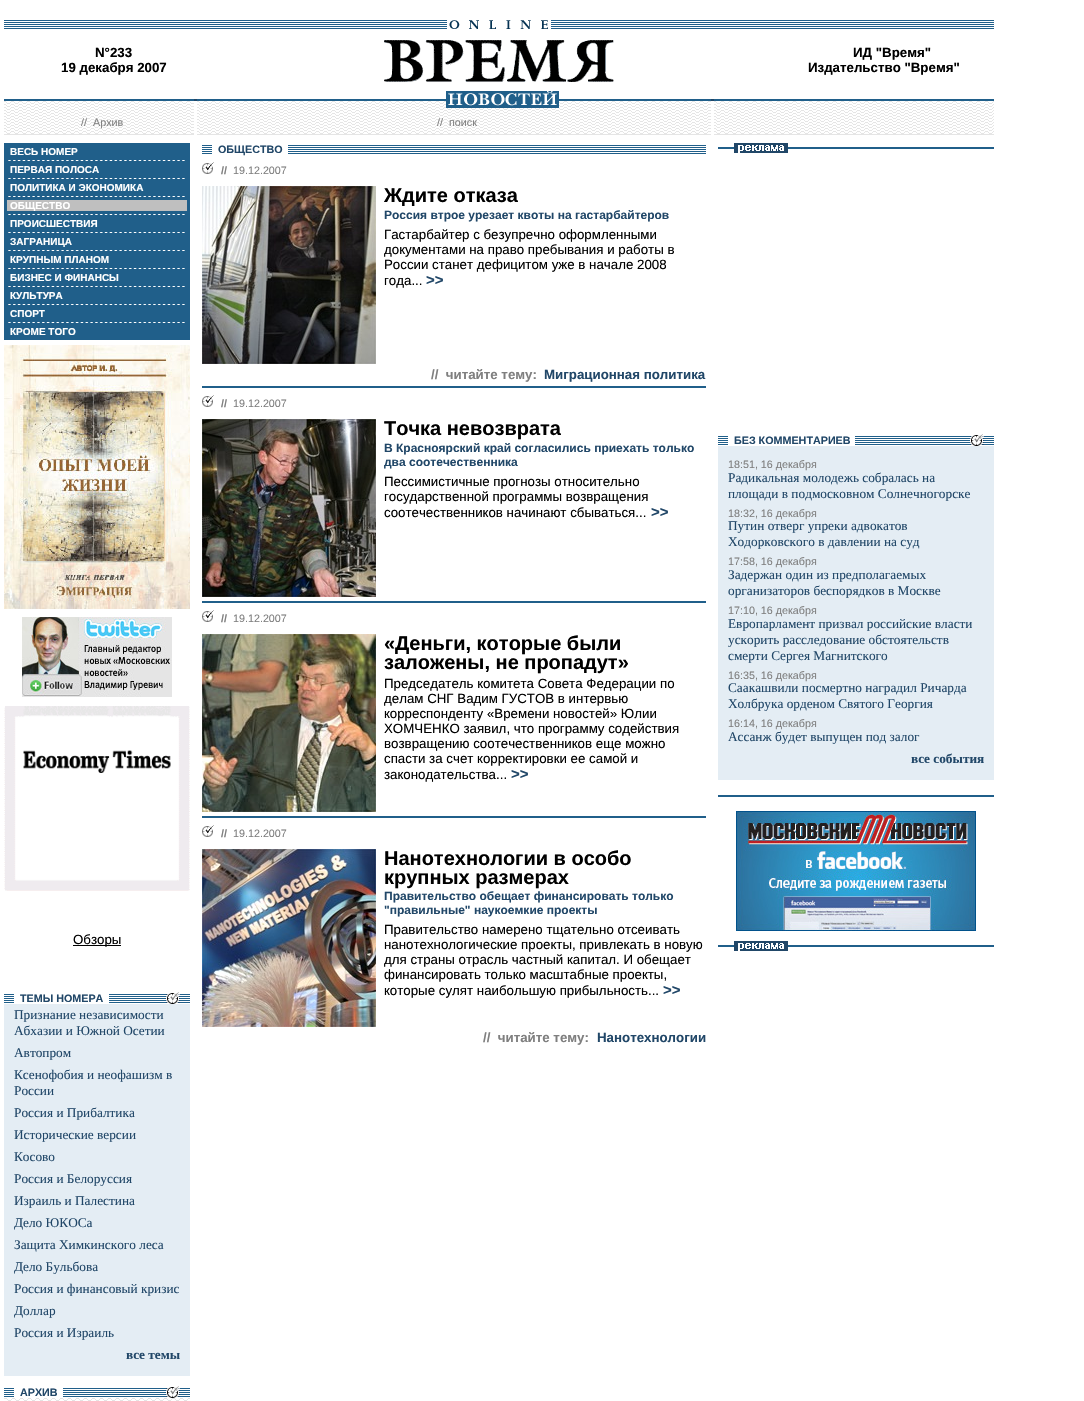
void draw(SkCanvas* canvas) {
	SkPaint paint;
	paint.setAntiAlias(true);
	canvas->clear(0xffffffff);
	canvas->drawImageRect(SkImages::DeferredFromEncodedData(SkData::MakeFromFileName("img1.png")), SkRect::MakeXYWH(4, 20, 990, 9), SkSamplingOptions());
	canvas->drawImageRect(SkImages::DeferredFromEncodedData(SkData::MakeFromFileName("img2.png")), SkRect::MakeXYWH(447, 20, 104, 9), SkSamplingOptions());
	SkFont f1(fontMgr->matchFamilyStyle("Liberation Sans", SkFontStyle::Bold()), 13.3);
	f1.setSubpixel(true);
	paint.setColor(0xff000000);
	canvas->drawString("N°233", 95, 57, f1, paint);
	canvas->drawString("19 декабря 2007", 61, 72, f1, paint);
	canvas->drawImageRect(SkImages::DeferredFromEncodedData(SkData::MakeFromFileName("img3.png")), SkRect::MakeXYWH(384, 40, 230, 42), SkSamplingOptions());
	canvas->drawString("ИД \"Время\"", 853, 57, f1, paint);
	canvas->drawString("Издательство \"Время\"", 808, 72, f1, paint);
	canvas->drawImageRect(SkImages::DeferredFromEncodedData(SkData::MakeFromFileName("img4.png")), SkRect::MakeXYWH(4, 99, 190, 9), SkSamplingOptions());
	paint.setColor(0xff214768);
	canvas->drawRect(SkRect::MakeXYWH(194, 99, 3, 2), paint);
	canvas->drawImageRect(SkImages::DeferredFromEncodedData(SkData::MakeFromFileName("img5.png")), SkRect::MakeXYWH(197, 99, 514, 9), SkSamplingOptions());
	canvas->drawImageRect(SkImages::DeferredFromEncodedData(SkData::MakeFromFileName("img6.png")), SkRect::MakeXYWH(446, 91, 113, 17), SkSamplingOptions());
	canvas->drawRect(SkRect::MakeXYWH(711, 99, 3, 2), paint);
	canvas->drawImageRect(SkImages::DeferredFromEncodedData(SkData::MakeFromFileName("img7.png")), SkRect::MakeXYWH(714, 99, 280, 9), SkSamplingOptions());
	canvas->drawImageRect(SkImages::DeferredFromEncodedData(SkData::MakeFromFileName("img8.png")), SkRect::MakeXYWH(4, 108, 190, 27), SkSamplingOptions());
	SkFont f2(fontMgr->matchFamilyStyle("Liberation Sans", SkFontStyle::Normal()), 10.75);
	f2.setSubpixel(true);
	paint.setColor(0xff7f7f7f);
	canvas->drawString("//", 81, 126, f2, paint);
	canvas->drawString("Архив", 93, 126, f2, paint);
	canvas->drawImageRect(SkImages::DeferredFromEncodedData(SkData::MakeFromFileName("img9.png")), SkRect::MakeXYWH(197, 108, 514, 27), SkSamplingOptions());
	canvas->drawString("//", 437, 126, f2, paint);
	canvas->drawString("поиск", 449, 126, f2, paint);
	canvas->drawImageRect(SkImages::DeferredFromEncodedData(SkData::MakeFromFileName("img10.png")), SkRect::MakeXYWH(714, 108, 280, 27), SkSamplingOptions());
	paint.setColor(0xff205f8a);
	canvas->drawRect(SkRect::MakeXYWH(4, 143, 186, 197), paint);
	SkFont f3(fontMgr->matchFamilyStyle("Liberation Sans", SkFontStyle::Bold()), 10);
	f3.setSubpixel(true);
	paint.setColor(0xffffffff);
	canvas->drawString("ВЕСЬ НОМЕР", 10, 155, f3, paint);
	canvas->drawImageRect(SkImages::DeferredFromEncodedData(SkData::MakeFromFileName("img11.png")), SkRect::MakeXYWH(8, 160, 177, 1), SkSamplingOptions());
	canvas->drawString("ПЕРВАЯ ПОЛОСА", 10, 173, f3, paint);
	canvas->drawImageRect(SkImages::DeferredFromEncodedData(SkData::MakeFromFileName("img11.png")), SkRect::MakeXYWH(8, 178, 177, 1), SkSamplingOptions());
	canvas->drawString("ПОЛИТИКА И ЭКОНОМИКА", 10, 191, f3, paint);
	canvas->drawImageRect(SkImages::DeferredFromEncodedData(SkData::MakeFromFileName("img11.png")), SkRect::MakeXYWH(8, 196, 177, 1), SkSamplingOptions());
	paint.setColor(0xffbfbfbf);
	canvas->drawRect(SkRect::MakeXYWH(7, 200, 180, 11), paint);
	paint.setColor(0xffffffff);
	canvas->drawString("ОБЩЕСТВО", 10, 209, f3, paint);
	canvas->drawImageRect(SkImages::DeferredFromEncodedData(SkData::MakeFromFileName("img11.png")), SkRect::MakeXYWH(8, 214, 177, 1), SkSamplingOptions());
	canvas->drawString("ПРОИСШЕСТВИЯ", 10, 227, f3, paint);
	canvas->drawImageRect(SkImages::DeferredFromEncodedData(SkData::MakeFromFileName("img11.png")), SkRect::MakeXYWH(8, 232, 177, 1), SkSamplingOptions());
	canvas->drawString("ЗАГРАНИЦА", 10, 245, f3, paint);
	canvas->drawImageRect(SkImages::DeferredFromEncodedData(SkData::MakeFromFileName("img11.png")), SkRect::MakeXYWH(8, 250, 177, 1), SkSamplingOptions());
	canvas->drawString("КРУПНЫМ ПЛАНОМ", 10, 263, f3, paint);
	canvas->drawImageRect(SkImages::DeferredFromEncodedData(SkData::MakeFromFileName("img11.png")), SkRect::MakeXYWH(8, 268, 177, 1), SkSamplingOptions());
	canvas->drawString("БИЗНЕС И ФИНАНСЫ", 10, 281, f3, paint);
	canvas->drawImageRect(SkImages::DeferredFromEncodedData(SkData::MakeFromFileName("img11.png")), SkRect::MakeXYWH(8, 286, 177, 1), SkSamplingOptions());
	canvas->drawString("КУЛЬТУРА", 10, 299, f3, paint);
	canvas->drawImageRect(SkImages::DeferredFromEncodedData(SkData::MakeFromFileName("img11.png")), SkRect::MakeXYWH(8, 304, 177, 1), SkSamplingOptions());
	canvas->drawString("СПОРТ", 10, 317, f3, paint);
	canvas->drawImageRect(SkImages::DeferredFromEncodedData(SkData::MakeFromFileName("img11.png")), SkRect::MakeXYWH(8, 322, 177, 1), SkSamplingOptions());
	canvas->drawString("КРОМЕ ТОГО", 10, 335, f3, paint);
	canvas->drawImageRect(SkImages::DeferredFromEncodedData(SkData::MakeFromFileName("img12.png")), SkRect::MakeXYWH(4, 345, 186, 264), SkSamplingOptions());
	canvas->drawImageRect(SkImages::DeferredFromEncodedData(SkData::MakeFromFileName("img13.png")), SkRect::MakeXYWH(22, 617, 150, 80), SkSamplingOptions());
	canvas->drawImageRect(SkImages::DeferredFromEncodedData(SkData::MakeFromFileName("img14.png")), SkRect::MakeXYWH(4, 706, 186, 185), SkSamplingOptions());
	paint.setColor(0xff000000);
	canvas->drawRect(SkRect::MakeXYWH(73, 945, 48, 1), paint);
	SkFont f4(fontMgr->matchFamilyStyle("Liberation Sans", SkFontStyle::Normal()), 13.3);
	f4.setSubpixel(true);
	canvas->drawString("Обзоры", 73, 944, f4, paint);
	canvas->drawImageRect(SkImages::DeferredFromEncodedData(SkData::MakeFromFileName("img15.png")), SkRect::MakeXYWH(4, 994, 186, 9), SkSamplingOptions());
	paint.setColor(0xffffffff);
	canvas->drawRect(SkRect::MakeXYWH(14, 994, 95, 9), paint);
	SkFont f5(fontMgr->matchFamilyStyle("Liberation Sans", SkFontStyle::Bold()), 10.75);
	f5.setSubpixel(true);
	paint.setColor(0xff214768);
	canvas->drawString("ТЕМЫ НОМЕРА", 20, 1002, f5, paint);
	canvas->drawImageRect(SkImages::DeferredFromEncodedData(SkData::MakeFromFileName("img16.png")), SkRect::MakeXYWH(166, 992, 14, 12), SkSamplingOptions());
	paint.setColor(0xffe4edf4);
	canvas->drawRect(SkRect::MakeXYWH(4, 1004, 186, 372), paint);
	SkFont f6(fontMgr->matchFamilyStyle("Liberation Serif", SkFontStyle::Normal()), 13.3);
	f6.setSubpixel(true);
	paint.setColor(0xff214768);
	canvas->drawString("Признание независимости", 14, 1019, f6, paint);
	canvas->drawString("Абхазии и Южной Осетии", 14, 1035, f6, paint);
	canvas->drawString("Автопром", 14, 1057, f6, paint);
	canvas->drawString("Ксенофобия и неофашизм в", 14, 1079, f6, paint);
	canvas->drawString("России", 14, 1095, f6, paint);
	canvas->drawString("Россия и Прибалтика", 14, 1117, f6, paint);
	canvas->drawString("Исторические версии", 14, 1139, f6, paint);
	canvas->drawString("Косово", 14, 1161, f6, paint);
	canvas->drawString("Россия и Белоруссия", 14, 1183, f6, paint);
	canvas->drawString("Израиль и Палестина", 14, 1205, f6, paint);
	canvas->drawString("Дело ЮКОСа", 14, 1227, f6, paint);
	canvas->drawString("Защита Химкинского леса", 14, 1249, f6, paint);
	canvas->drawString("Дело Бульбова", 14, 1271, f6, paint);
	canvas->drawString("Россия и финансовый кризис", 14, 1293, f6, paint);
	canvas->drawString("Доллар", 14, 1315, f6, paint);
	canvas->drawString("Россия и Израиль", 14, 1337, f6, paint);
	SkFont f7(fontMgr->matchFamilyStyle("Liberation Serif", SkFontStyle::Bold()), 13.3);
	f7.setSubpixel(true);
	canvas->drawString("все темы", 126, 1359, f7, paint);
	canvas->drawImageRect(SkImages::DeferredFromEncodedData(SkData::MakeFromFileName("img15.png")), SkRect::MakeXYWH(4, 1388, 186, 9), SkSamplingOptions());
	paint.setColor(0xffffffff);
	canvas->drawRect(SkRect::MakeXYWH(14, 1388, 49, 9), paint);
	paint.setColor(0xff214768);
	canvas->drawString("АРХИВ", 20, 1396, f5, paint);
	canvas->drawImageRect(SkImages::DeferredFromEncodedData(SkData::MakeFromFileName("img16.png")), SkRect::MakeXYWH(166, 1386, 14, 12), SkSamplingOptions());
	canvas->drawImageRect(SkImages::DeferredFromEncodedData(SkData::MakeFromFileName("img17.png")), SkRect::MakeXYWH(4, 1398, 186, 3), SkSamplingOptions());
	canvas->drawImageRect(SkImages::DeferredFromEncodedData(SkData::MakeFromFileName("img18.png")), SkRect::MakeXYWH(202, 145, 504, 9), SkSamplingOptions());
	paint.setColor(0xffffffff);
	canvas->drawRect(SkRect::MakeXYWH(212, 145, 76, 9), paint);
	paint.setColor(0xff214768);
	canvas->drawString("ОБЩЕСТВО", 218, 153, f5, paint);
	canvas->drawImageRect(SkImages::DeferredFromEncodedData(SkData::MakeFromFileName("img19.png")), SkRect::MakeXYWH(202, 162, 12, 12), SkSamplingOptions());
	paint.setColor(0xff7f7f7f);
	canvas->drawString("//", 221, 174, f5, paint);
	canvas->drawString("19.12.2007", 233, 174, f2, paint);
	canvas->drawImageRect(SkImages::DeferredFromEncodedData(SkData::MakeFromFileName("img20.png")), SkRect::MakeXYWH(202, 186, 174, 178), SkSamplingOptions());
	SkFont f8(fontMgr->matchFamilyStyle("Liberation Sans", SkFontStyle::Bold()), 20);
	f8.setSubpixel(true);
	paint.setColor(0xff000000);
	canvas->drawString("Ждите отказа", 384, 202, f8, paint);
	SkFont f9(fontMgr->matchFamilyStyle("Liberation Sans", SkFontStyle::Bold()), 12);
	f9.setSubpixel(true);
	paint.setColor(0xff214768);
	canvas->drawString("Россия втрое урезает квоты на гастарбайтеров", 384, 219, f9, paint);
	paint.setColor(0xff000000);
	canvas->drawString("Гастарбайтер с безупречно оформленными", 384, 239, f4, paint);
	canvas->drawString("документами на право пребывания и работы в", 384, 254, f4, paint);
	canvas->drawString("России станет дефицитом уже в начале 2008", 384, 269, f4, paint);
	canvas->drawString("года...", 384, 285, f4, paint);
	SkFont f10(fontMgr->matchFamilyStyle("Liberation Sans", SkFontStyle::Bold()), 15);
	f10.setSubpixel(true);
	paint.setColor(0xff214768);
	canvas->drawString(">>", 426, 285, f10, paint);
	paint.setColor(0xff7f7f7f);
	canvas->drawString("//  читайте тему:", 431, 379, f1, paint);
	paint.setColor(0xff214768);
	canvas->drawString("Миграционная политика", 544, 379, f1, paint);
	paint.setColor(0xff205f8a);
	canvas->drawRect(SkRect::MakeXYWH(202, 386, 504, 2), paint);
	canvas->drawImageRect(SkImages::DeferredFromEncodedData(SkData::MakeFromFileName("img19.png")), SkRect::MakeXYWH(202, 395, 12, 12), SkSamplingOptions());
	paint.setColor(0xff7f7f7f);
	canvas->drawString("//", 221, 407, f5, paint);
	canvas->drawString("19.12.2007", 233, 407, f2, paint);
	canvas->drawImageRect(SkImages::DeferredFromEncodedData(SkData::MakeFromFileName("img21.png")), SkRect::MakeXYWH(202, 419, 174, 178), SkSamplingOptions());
	paint.setColor(0xff000000);
	canvas->drawString("Точка невозврата", 384, 435, f8, paint);
	paint.setColor(0xff214768);
	canvas->drawString("В Красноярский край согласились приехать только", 384, 452, f9, paint);
	canvas->drawString("два соотечественника", 384, 466, f9, paint);
	paint.setColor(0xff000000);
	canvas->drawString("Пессимистичные прогнозы относительно", 384, 486, f4, paint);
	canvas->drawString("государственной программы возвращения", 384, 501, f4, paint);
	canvas->drawString("соотечественников начинают сбываться...", 384, 517, f4, paint);
	paint.setColor(0xff214768);
	canvas->drawString(">>", 651, 517, f10, paint);
	paint.setColor(0xff205f8a);
	canvas->drawRect(SkRect::MakeXYWH(202, 601, 504, 2), paint);
	canvas->drawImageRect(SkImages::DeferredFromEncodedData(SkData::MakeFromFileName("img19.png")), SkRect::MakeXYWH(202, 610, 12, 12), SkSamplingOptions());
	paint.setColor(0xff7f7f7f);
	canvas->drawString("//", 221, 622, f5, paint);
	canvas->drawString("19.12.2007", 233, 622, f2, paint);
	canvas->drawImageRect(SkImages::DeferredFromEncodedData(SkData::MakeFromFileName("img22.png")), SkRect::MakeXYWH(202, 634, 174, 178), SkSamplingOptions());
	paint.setColor(0xff000000);
	canvas->drawString("«Деньги, которые были", 384, 650, f8, paint);
	canvas->drawString("заложены, не пропадут»", 384, 669, f8, paint);
	canvas->drawString("Председатель комитета Совета Федерации по", 384, 688, f4, paint);
	canvas->drawString("делам СНГ Вадим ГУСТОВ в интервью", 384, 703, f4, paint);
	canvas->drawString("корреспонденту «Времени новостей» Юлии", 384, 718, f4, paint);
	canvas->drawString("ХОМЧЕНКО заявил, что программу содействия", 384, 733, f4, paint);
	canvas->drawString("возвращению соотечественников еще можно", 384, 748, f4, paint);
	canvas->drawString("спасти за счет корректировки ее самой и", 384, 763, f4, paint);
	canvas->drawString("законодательства...", 384, 779, f4, paint);
	paint.setColor(0xff214768);
	canvas->drawString(">>", 511, 779, f10, paint);
	paint.setColor(0xff205f8a);
	canvas->drawRect(SkRect::MakeXYWH(202, 816, 504, 2), paint);
	canvas->drawImageRect(SkImages::DeferredFromEncodedData(SkData::MakeFromFileName("img19.png")), SkRect::MakeXYWH(202, 825, 12, 12), SkSamplingOptions());
	paint.setColor(0xff7f7f7f);
	canvas->drawString("//", 221, 837, f5, paint);
	canvas->drawString("19.12.2007", 233, 837, f2, paint);
	canvas->drawImageRect(SkImages::DeferredFromEncodedData(SkData::MakeFromFileName("img23.png")), SkRect::MakeXYWH(202, 849, 174, 178), SkSamplingOptions());
	paint.setColor(0xff000000);
	canvas->drawString("Нанотехнологии в особо", 384, 865, f8, paint);
	canvas->drawString("крупных размерах", 384, 884, f8, paint);
	paint.setColor(0xff214768);
	canvas->drawString("Правительство обещает финансировать только", 384, 900, f9, paint);
	canvas->drawString("\"правильные\" наукоемкие проекты", 384, 914, f9, paint);
	paint.setColor(0xff000000);
	canvas->drawString("Правительство намерено тщательно отсеивать", 384, 934, f4, paint);
	canvas->drawString("нанотехнологические проекты, привлекать в новую", 384, 949, f4, paint);
	canvas->drawString("для страны отрасль частный капитал. И обещает", 384, 964, f4, paint);
	canvas->drawString("финансировать только масштабные проекты,", 384, 979, f4, paint);
	canvas->drawString("которые сулят наибольшую прибыльность...", 384, 995, f4, paint);
	paint.setColor(0xff214768);
	canvas->drawString(">>", 663, 995, f10, paint);
	paint.setColor(0xff7f7f7f);
	canvas->drawString("//  читайте тему:", 483, 1042, f1, paint);
	paint.setColor(0xff214768);
	canvas->drawString("Нанотехнологии", 597, 1042, f1, paint);
	paint.setColor(0xff205f8a);
	canvas->drawRect(SkRect::MakeXYWH(718, 147, 276, 2), paint);
	canvas->drawImageRect(SkImages::DeferredFromEncodedData(SkData::MakeFromFileName("img24.png")), SkRect::MakeXYWH(734, 143, 54, 10), SkSamplingOptions());
	canvas->drawImageRect(SkImages::DeferredFromEncodedData(SkData::MakeFromFileName("img25.png")), SkRect::MakeXYWH(718, 436, 276, 9), SkSamplingOptions());
	paint.setColor(0xffffffff);
	canvas->drawRect(SkRect::MakeXYWH(728, 436, 127, 9), paint);
	paint.setColor(0xff214768);
	canvas->drawString("БЕЗ КОМMЕНТАРИЕВ", 734, 444, f5, paint);
	canvas->drawImageRect(SkImages::DeferredFromEncodedData(SkData::MakeFromFileName("img16.png")), SkRect::MakeXYWH(970, 434, 14, 12), SkSamplingOptions());
	paint.setColor(0xffe4edf4);
	canvas->drawRect(SkRect::MakeXYWH(718, 446, 276, 334), paint);
	paint.setColor(0xff7f7f7f);
	canvas->drawString("18:51, 16 декабря", 728, 468, f2, paint);
	paint.setColor(0xff214768);
	canvas->drawString("Радикальная молодежь собралась на", 728, 482, f6, paint);
	canvas->drawString("площади в подмосковном Солнечногорске", 728, 498, f6, paint);
	paint.setColor(0xff7f7f7f);
	canvas->drawString("18:32, 16 декабря", 728, 517, f2, paint);
	paint.setColor(0xff214768);
	canvas->drawString("Путин отверг упреки адвокатов", 728, 530, f6, paint);
	canvas->drawString("Ходорковского в давлении на суд", 728, 546, f6, paint);
	paint.setColor(0xff7f7f7f);
	canvas->drawString("17:58, 16 декабря", 728, 565, f2, paint);
	paint.setColor(0xff214768);
	canvas->drawString("Задержан один из предполагаемых", 728, 579, f6, paint);
	canvas->drawString("организаторов беспорядков в Москве", 728, 595, f6, paint);
	paint.setColor(0xff7f7f7f);
	canvas->drawString("17:10, 16 декабря", 728, 614, f2, paint);
	paint.setColor(0xff214768);
	canvas->drawString("Европарламент призвал российские власти", 728, 628, f6, paint);
	canvas->drawString("ускорить расследование обстоятельств", 728, 644, f6, paint);
	canvas->drawString("смерти Сергея Магнитского", 728, 660, f6, paint);
	paint.setColor(0xff7f7f7f);
	canvas->drawString("16:35, 16 декабря", 728, 679, f2, paint);
	paint.setColor(0xff214768);
	canvas->drawString("Саакашвили посмертно наградил Ричарда", 728, 692, f6, paint);
	canvas->drawString("Холбрука орденом Святого Георгия", 728, 708, f6, paint);
	paint.setColor(0xff7f7f7f);
	canvas->drawString("16:14, 16 декабря", 728, 727, f2, paint);
	paint.setColor(0xff214768);
	canvas->drawString("Ассанж будет выпущен под залог", 728, 741, f6, paint);
	canvas->drawString("все события", 911, 763, f7, paint);
	paint.setColor(0xff205f8a);
	canvas->drawRect(SkRect::MakeXYWH(718, 795, 276, 2), paint);
	canvas->drawImageRect(SkImages::DeferredFromEncodedData(SkData::MakeFromFileName("img26.png")), SkRect::MakeXYWH(736, 811, 240, 120), SkSamplingOptions());
	canvas->drawRect(SkRect::MakeXYWH(718, 945, 276, 2), paint);
	canvas->drawImageRect(SkImages::DeferredFromEncodedData(SkData::MakeFromFileName("img24.png")), SkRect::MakeXYWH(734, 941, 54, 10), SkSamplingOptions());
}
